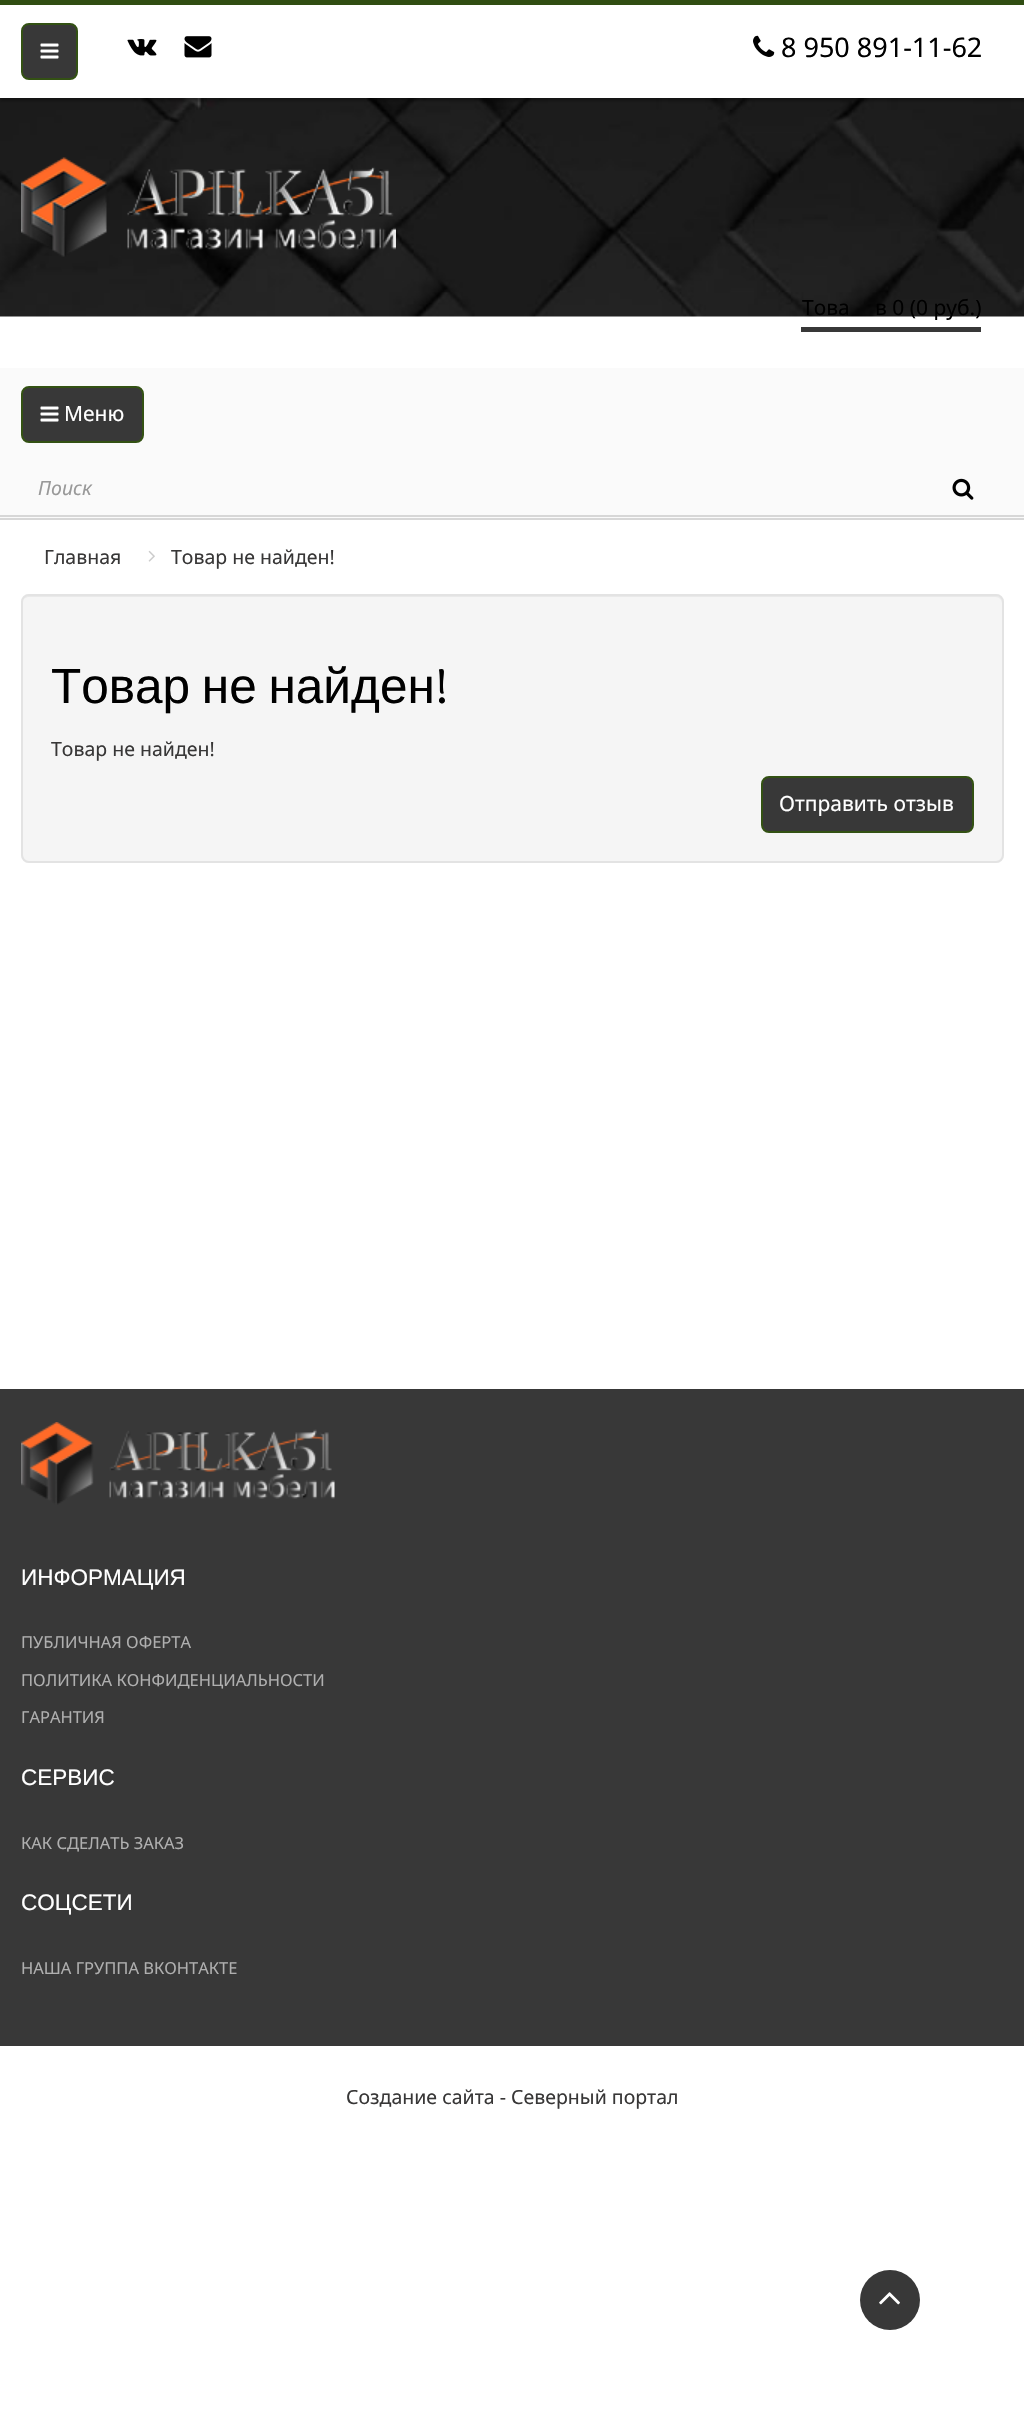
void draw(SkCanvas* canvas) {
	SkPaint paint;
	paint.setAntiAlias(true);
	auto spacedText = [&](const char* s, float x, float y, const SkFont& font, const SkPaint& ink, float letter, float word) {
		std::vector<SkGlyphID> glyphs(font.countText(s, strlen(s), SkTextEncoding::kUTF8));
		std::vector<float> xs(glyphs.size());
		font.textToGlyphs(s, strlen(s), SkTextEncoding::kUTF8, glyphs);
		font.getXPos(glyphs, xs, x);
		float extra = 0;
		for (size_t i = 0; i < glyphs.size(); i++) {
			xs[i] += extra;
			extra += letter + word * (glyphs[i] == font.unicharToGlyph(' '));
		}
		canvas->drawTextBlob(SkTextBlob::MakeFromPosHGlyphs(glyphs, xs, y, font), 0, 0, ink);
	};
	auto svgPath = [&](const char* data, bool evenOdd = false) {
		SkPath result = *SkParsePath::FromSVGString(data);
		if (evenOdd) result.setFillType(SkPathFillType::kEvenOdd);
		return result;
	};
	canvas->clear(0xffffffff);
	canvas->drawImageRect(SkImages::DeferredFromEncodedData(SkData::MakeFromFileName("img5.png")), SkRect::MakeXYWH(0, 98, 1024, 219), SkSamplingOptions());
	paint.setColor(0x4d000000);
	paint.setMaskFilter(SkMaskFilter::MakeBlur(kNormal_SkBlurStyle, 1.5));
	canvas->drawRect(SkRect::MakeXYWH(0, 3, 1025, 98), paint);
	paint.setMaskFilter(nullptr);
	paint.setColor(0xffffffff);
	canvas->drawRect(SkRect::MakeXYWH(0, 5, 1024, 93), paint);
	paint.setColor(0xff304d12);
	canvas->drawRect(SkRect::MakeXYWH(0, 0, 1024, 5), paint);
	paint.setColor(0xff383838);
	canvas->drawRoundRect(SkRect::MakeXYWH(22, 24, 55, 55), 7, 7, paint);
	paint.setStroke(true);
	paint.setStrokeWidth(2);
	paint.setColor(0xff335113);
	canvas->drawRoundRect(SkRect::MakeXYWH(22, 24, 55, 55), 7, 7, paint);
	canvas->drawImageRect(SkImages::DeferredFromEncodedData(SkData::MakeFromFileName("img1.png")), SkRect::MakeXYWH(40, 43, 19, 16), SkSamplingOptions());
	canvas->drawImageRect(SkImages::DeferredFromEncodedData(SkData::MakeFromFileName("img2.png")), SkRect::MakeXYWH(127, 39, 30, 17), SkSamplingOptions());
	canvas->drawImageRect(SkImages::DeferredFromEncodedData(SkData::MakeFromFileName("img3.png")), SkRect::MakeXYWH(184, 36, 28, 22), SkSamplingOptions());
	canvas->drawImageRect(SkImages::DeferredFromEncodedData(SkData::MakeFromFileName("img4.png")), SkRect::MakeXYWH(753, 35, 22, 22), SkSamplingOptions());
	SkFont f1(fontMgr->matchFamilyStyle("Noto Sans", SkFontStyle::Normal()), 27);
	f1.setSubpixel(true);
	paint.setStroke(false);
	paint.setColor(0xff000000);
	canvas->drawString("8 950 891-11-62", 781, 57, f1, paint);
	canvas->drawImageRect(SkImages::DeferredFromEncodedData(SkData::MakeFromFileName("img6.png")), SkRect::MakeXYWH(21, 157, 375, 100), SkSamplingOptions());
	paint.setColor(0xff383838);
	canvas->drawRect(SkRect::MakeXYWH(801, 327, 180, 5), paint);
	SkFont f2(fontMgr->matchFamilyStyle("Noto Sans", SkFontStyle::Normal()), 21);
	f2.setSubpixel(true);
	paint.setColor(0xff000000);
	canvas->drawString("Това", 802, 315, f2, paint);
	canvas->drawString("в 0 (0 руб.)", 875, 315, f2, paint);
	paint.setColor(0xfffafafa);
	canvas->drawRect(SkRect::MakeXYWH(0, 368, 1024, 150), paint);
	paint.setColor(0xffd7d7d7);
	canvas->drawRect(SkRect::MakeXYWH(0, 515, 1024, 2), paint);
	canvas->drawRect(SkRect::MakeXYWH(0, 518, 1024, 2), paint);
	paint.setColor(0xff383838);
	canvas->drawRoundRect(SkRect::MakeXYWH(22, 387, 121, 55), 7, 7, paint);
	paint.setStroke(true);
	paint.setColor(0xff335113);
	canvas->drawRoundRect(SkRect::MakeXYWH(22, 387, 121, 55), 7, 7, paint);
	canvas->drawImageRect(SkImages::DeferredFromEncodedData(SkData::MakeFromFileName("img1.png")), SkRect::MakeXYWH(40, 406, 19, 16), SkSamplingOptions());
	paint.setStroke(false);
	paint.setColor(0xffffffff);
	canvas->drawString("Меню", 64, 421, f2, paint);
	SkFont f3(fontMgr->matchFamilyStyle("Noto Sans", SkFontStyle::Italic()), 19.5);
	f3.setSubpixel(true);
	paint.setColor(0xff999999);
	canvas->drawString("Поиск", 38, 495, f3, paint);
	canvas->drawImageRect(SkImages::DeferredFromEncodedData(SkData::MakeFromFileName("img7.png")), SkRect::MakeXYWH(952, 478, 22, 22), SkSamplingOptions());
	SkFont f4(fontMgr->matchFamilyStyle("Noto Sans", SkFontStyle::Normal()), 19.5);
	f4.setSubpixel(true);
	paint.setColor(0xff383737);
	canvas->drawString("Главная", 44, 564, f4, paint);
	canvas->drawImageRect(SkImages::DeferredFromEncodedData(SkData::MakeFromFileName("img8.png")), SkRect::MakeXYWH(148, 550, 7, 12), SkSamplingOptions());
	canvas->drawString("Товар не найден!", 171, 564, f4, paint);
	paint.setColor(0xfff5f5f5);
	canvas->drawRoundRect(SkRect::MakeXYWH(21, 594, 983, 269), 8, 8, paint);
	paint.setColor(0xffe9e9e9);
	canvas->drawPath(svgPath("M28 597H996C999 597 1002 600 1002 603V602C1002 599 999 596 996 596H29C27 596 25 597 24 599C25 598 27 597 28 597Z"), paint);
	paint.setStroke(true);
	paint.setColor(0xffe3e3e3);
	canvas->drawRoundRect(SkRect::MakeXYWH(22, 595, 981, 267), 7, 7, paint);
	SkFont f5(fontMgr->matchFamilyStyle("Liberation Sans", SkFontStyle::Normal()), 49.5);
	f5.setSubpixel(true);
	paint.setStroke(false);
	paint.setColor(0xff000000);
	spacedText("Товар не найден", 51, 703, f5, paint, 0, -2);
	SkFont f6(fontMgr->matchFamilyStyle("Overlock", SkFontStyle::Normal()), 49.5);
	f6.setSubpixel(true);
	canvas->drawString("!", 434, 703, f6, paint);
	paint.setColor(0xff383737);
	canvas->drawString("Товар не найден!", 51, 756, f4, paint);
	paint.setColor(0xff383838);
	canvas->drawRoundRect(SkRect::MakeXYWH(762, 777, 211, 55), 7, 7, paint);
	paint.setStroke(true);
	paint.setColor(0xff335113);
	canvas->drawRoundRect(SkRect::MakeXYWH(762, 777, 211, 55), 7, 7, paint);
	paint.setStroke(false);
	paint.setColor(0xffffffff);
	canvas->drawString("Отправить отзыв", 779, 811, f2, paint);
	paint.setColor(0xff383838);
	canvas->drawRect(SkRect::MakeXYWH(0, 1389, 1024, 657), paint);
	canvas->drawImageRect(SkImages::DeferredFromEncodedData(SkData::MakeFromFileName("img9.png")), SkRect::MakeXYWH(21, 1422, 314, 83), SkSamplingOptions());
	SkFont f7(fontMgr->matchFamilyStyle("Liberation Sans", SkFontStyle::Normal()), 22.5);
	f7.setSubpixel(true);
	paint.setColor(0xffffffff);
	canvas->drawString("ИНФОРМАЦИЯ", 21, 1585, f7, paint);
	SkFont f8(fontMgr->matchFamilyStyle("Noto Sans", SkFontStyle::Normal()), 16.5);
	f8.setSubpixel(true);
	paint.setColor(0xffafafaf);
	canvas->drawString("ПУБЛИЧНАЯ ОФЕРТА", 21, 1648, f8, paint);
	canvas->drawString("ПОЛИТИКА КОНФИДЕНЦИАЛЬНОСТИ", 21, 1686, f8, paint);
	canvas->drawString("ГАРАНТИЯ", 21, 1723, f8, paint);
	paint.setColor(0xffffffff);
	canvas->drawString("СЕРВИС", 21, 1785, f7, paint);
	paint.setColor(0xffafafaf);
	canvas->drawString("КАК СДЕЛАТЬ ЗАКАЗ", 21, 1849, f8, paint);
	paint.setColor(0xffffffff);
	canvas->drawString("СОЦСЕТИ", 21, 1910, f7, paint);
	paint.setColor(0xffafafaf);
	canvas->drawString("НАША ГРУППА ВКОНТАКТЕ", 21, 1974, f8, paint);
	paint.setColor(0xff383737);
	canvas->drawString("Создание сайта - Северный портал", 346, 2104, f4, paint);
	paint.setColor(0xff383838);
	canvas->drawCircle(890, 2300, 30, paint);
	canvas->drawImageRect(SkImages::DeferredFromEncodedData(SkData::MakeFromFileName("img10.png")), SkRect::MakeXYWH(879, 2292, 21, 13), SkSamplingOptions());
}
